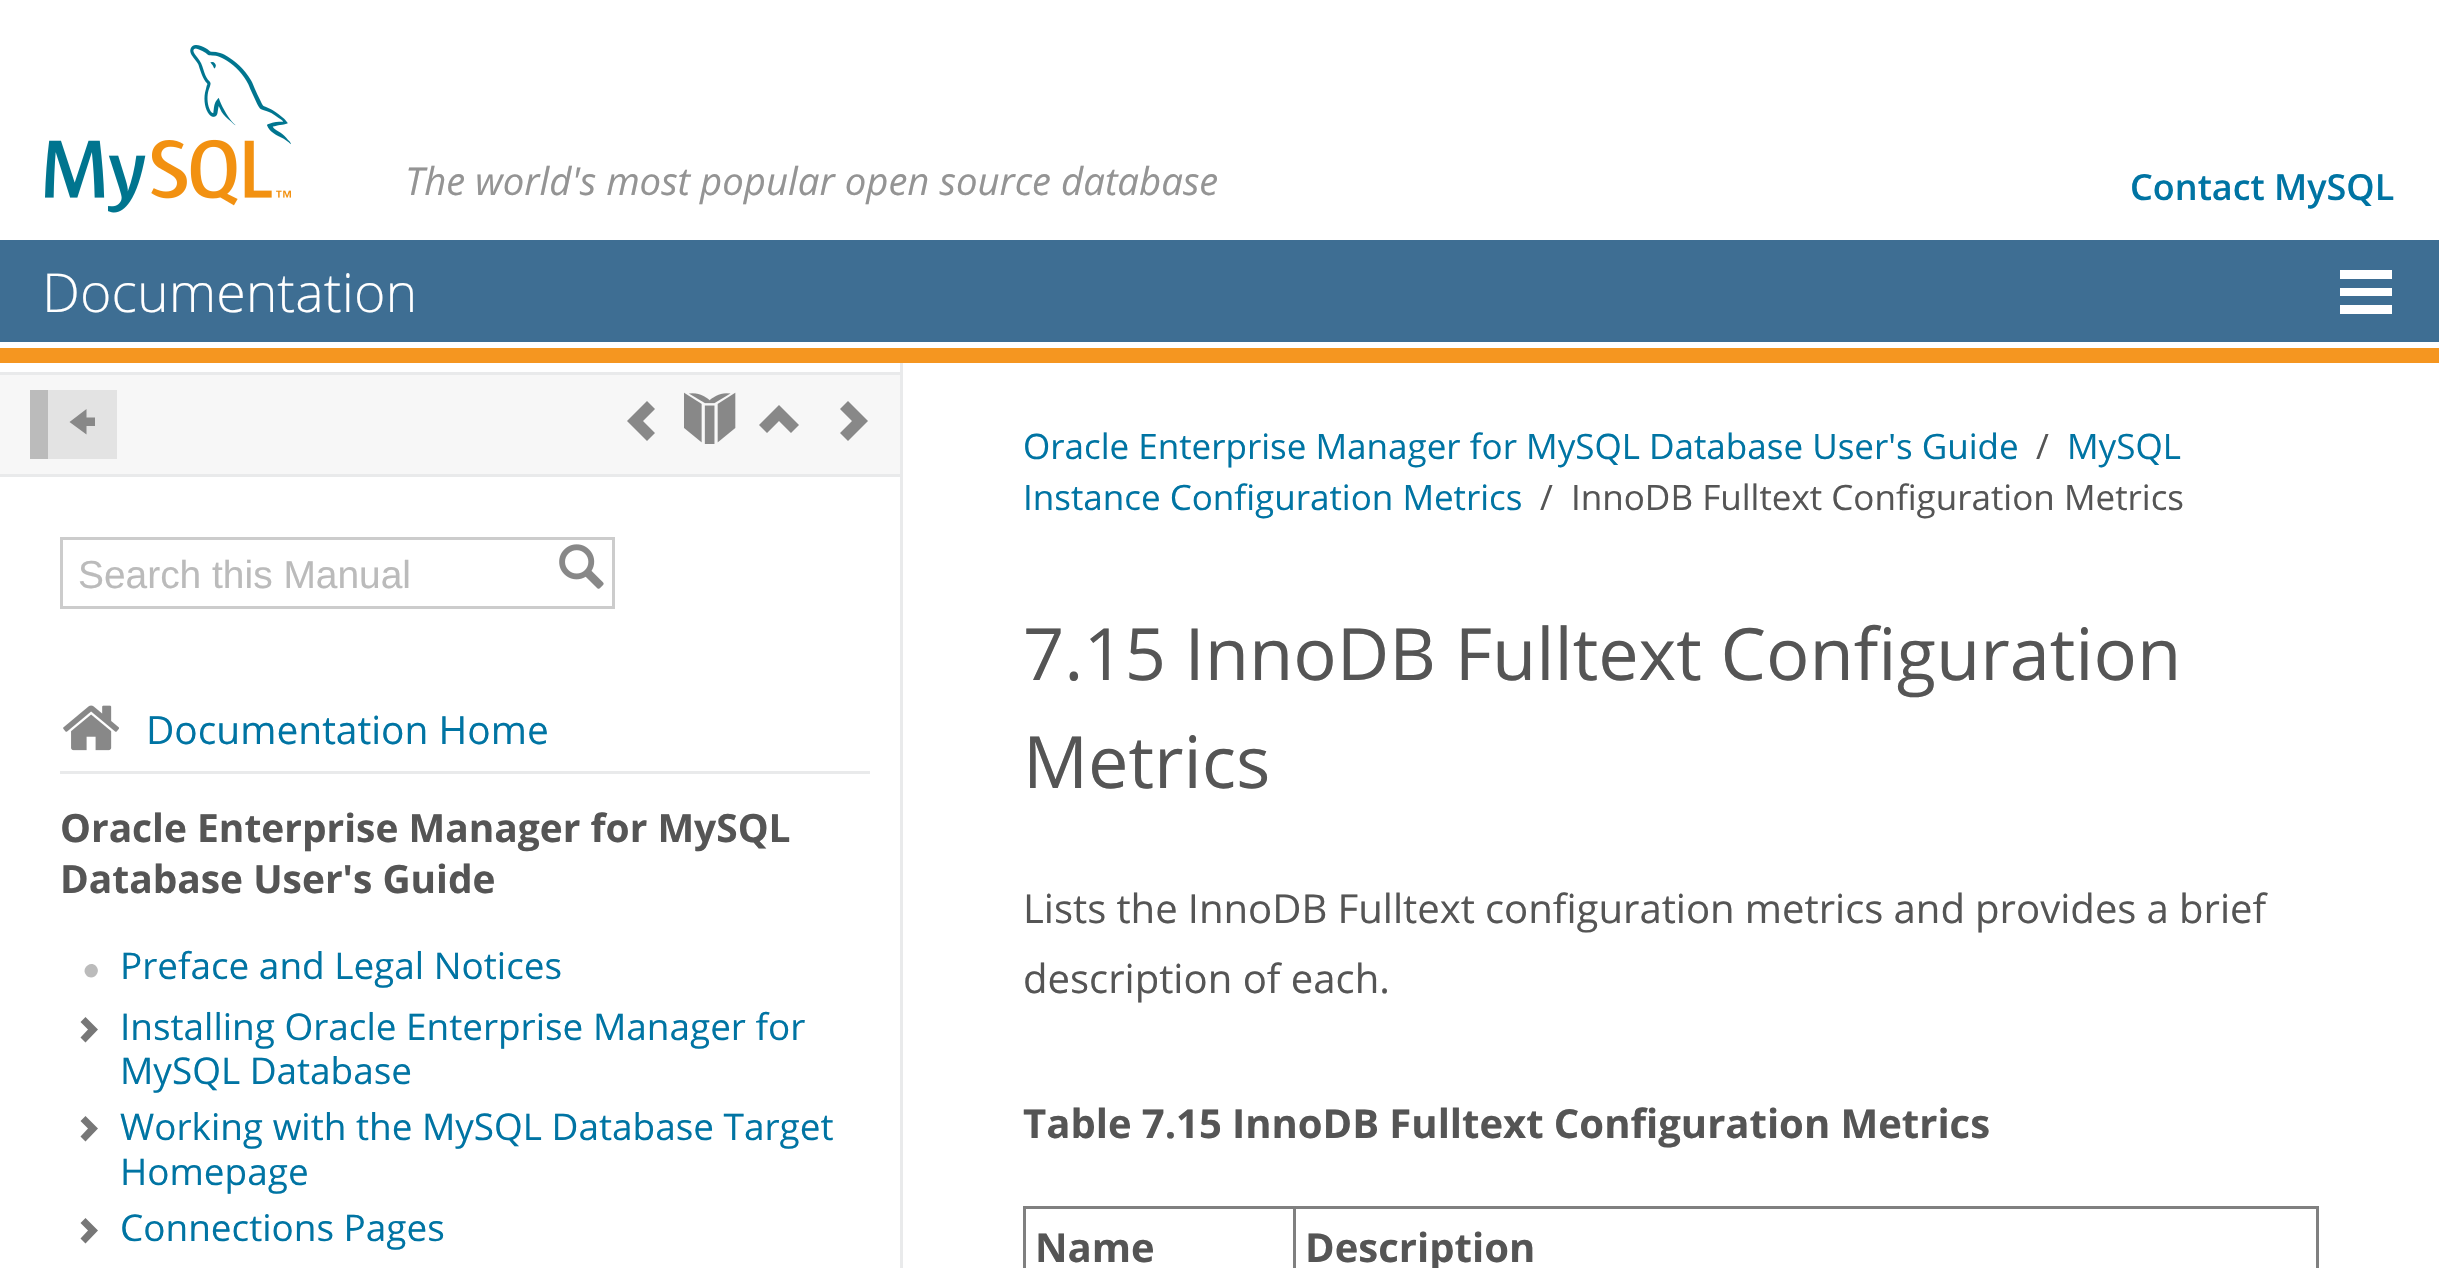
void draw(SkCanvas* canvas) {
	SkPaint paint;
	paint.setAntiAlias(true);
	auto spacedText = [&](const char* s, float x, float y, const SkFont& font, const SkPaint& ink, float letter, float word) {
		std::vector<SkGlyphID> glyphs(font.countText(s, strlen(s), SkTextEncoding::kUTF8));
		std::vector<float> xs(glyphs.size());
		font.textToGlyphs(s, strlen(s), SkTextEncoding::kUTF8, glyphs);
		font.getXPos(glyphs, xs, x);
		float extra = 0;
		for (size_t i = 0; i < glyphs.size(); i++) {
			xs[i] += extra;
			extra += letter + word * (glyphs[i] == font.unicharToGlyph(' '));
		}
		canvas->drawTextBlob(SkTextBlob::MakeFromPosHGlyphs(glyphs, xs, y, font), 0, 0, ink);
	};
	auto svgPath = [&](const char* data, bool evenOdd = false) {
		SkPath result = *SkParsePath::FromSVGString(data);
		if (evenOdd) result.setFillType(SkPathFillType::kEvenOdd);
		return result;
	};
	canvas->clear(0xffffffff);
	canvas->drawImageRect(SkImages::DeferredFromEncodedData(SkData::MakeFromFileName("img1.png")), SkRect::MakeXYWH(45, 45, 246, 168), SkSamplingOptions());
	SkFont f1(fontMgr->matchFamilyStyle("Open Sans", SkFontStyle::Italic()), 38.4);
	f1.setSubpixel(true);
	paint.setColor(0xff949494);
	canvas->drawString("The world's most popular open source database", 405, 195, f1, paint);
	SkFont f2(fontMgr->matchFamilyStyle("Open Sans", SkFontStyle(600, SkFontStyle::kNormal_Width, SkFontStyle::kUpright_Slant)), 36);
	f2.setSubpixel(true);
	paint.setColor(0xff0074a3);
	canvas->drawString("Contact MySQL", 2130, 200, f2, paint);
	paint.setColor(0xff3e6e93);
	canvas->drawRect(SkRect::MakeXYWH(0, 240, 2439, 102), paint);
	SkFont f3(fontMgr->matchFamilyStyle("Open Sans", SkFontStyle(300, SkFontStyle::kNormal_Width, SkFontStyle::kUpright_Slant)), 53.75);
	f3.setSubpixel(true);
	paint.setColor(0xffffffff);
	canvas->drawString("Documentation", 42, 312, f3, paint);
	canvas->drawPath(svgPath("M2340 270V279H2392V270ZM2340 296H2392V288H2340ZM2340 314H2392V305H2340Z"), paint);
	paint.setColor(0xfff59620);
	canvas->drawRect(SkRect::MakeXYWH(0, 348, 2439, 15), paint);
	paint.setColor(0xffe9eaeb);
	canvas->drawRect(SkRect::MakeXYWH(900, 363, 3, 905), paint);
	paint.setColor(0xfff7f7f7);
	canvas->drawRect(SkRect::MakeXYWH(0, 375, 900, 99), paint);
	paint.setColor(0xffe9eaeb);
	canvas->drawRect(SkRect::MakeXYWH(0, 372, 900, 3), paint);
	canvas->drawRect(SkRect::MakeXYWH(0, 474, 900, 3), paint);
	paint.setColor(0xffe3e3e3);
	canvas->drawRect(SkRect::MakeXYWH(48, 390, 69, 69), paint);
	paint.setColor(0xffbbbbbb);
	canvas->drawRect(SkRect::MakeXYWH(30, 390, 18, 69), paint);
	paint.setColor(0xff888888);
	canvas->drawPath(svgPath("M86.5 417.5V409L69.5 422L86.5 434.5V426H95V417.5Z"), paint);
	canvas->drawPath(svgPath("M655 409L647 401L627 421L647 441L655 433L643 421Z"), paint);
	canvas->drawImageRect(SkImages::DeferredFromEncodedData(SkData::MakeFromFileName("img2.png")), SkRect::MakeXYWH(684, 392, 52, 52), SkSamplingOptions());
	canvas->drawPath(svgPath("M779 405L759 425L767 433L779 421L791 433L799 425Z"), paint);
	canvas->drawPath(svgPath("M848 401L840 409L852 421L840 433L848 441L868 421Z"), paint);
	paint.setStroke(true);
	paint.setStrokeWidth(3);
	paint.setColor(0xffcccccc);
	canvas->drawRect(SkRect::MakeXYWH(61.5, 538.5, 552, 69), paint);
	SkFont f4(fontMgr->matchFamilyStyle("Liberation Sans", SkFontStyle::Normal()), 38.9);
	f4.setSubpixel(true);
	paint.setStroke(false);
	paint.setColor(0xffbbbbbb);
	canvas->drawString("Search this Manual", 78, 588, f4, paint);
	canvas->drawImageRect(SkImages::DeferredFromEncodedData(SkData::MakeFromFileName("img3.png")), SkRect::MakeXYWH(559, 544, 45, 45), SkSamplingOptions());
	canvas->drawImageRect(SkImages::DeferredFromEncodedData(SkData::MakeFromFileName("img4.png")), SkRect::MakeXYWH(63, 705, 56, 46), SkSamplingOptions());
	SkFont f5(fontMgr->matchFamilyStyle("Open Sans", SkFontStyle::Normal()), 38.9);
	f5.setSubpixel(true);
	paint.setColor(0xff0074a3);
	canvas->drawString("Documentation Home", 146, 744, f5, paint);
	paint.setColor(0xffe9eaeb);
	canvas->drawRect(SkRect::MakeXYWH(60, 771, 810, 3), paint);
	SkFont f6(fontMgr->matchFamilyStyle("Open Sans", SkFontStyle::Bold()), 38.9);
	f6.setSubpixel(true);
	paint.setColor(0xff555555);
	canvas->drawString("Oracle Enterprise Manager for MySQL", 60, 842, f6, paint);
	canvas->drawString("Database User's Guide", 60, 893, f6, paint);
	paint.setColor(0xffbbbbbb);
	canvas->drawPath(svgPath("M86.5 975.5C80.5 969.5 89.5 960 96 966C102 972.5 92.5 981.5 86.5 975.5Z"), paint);
	SkFont f7(fontMgr->matchFamilyStyle("Open Sans", SkFontStyle::Normal()), 36.9);
	f7.setSubpixel(true);
	paint.setColor(0xff0074a3);
	canvas->drawString("Preface and Legal Notices", 120, 979, f7, paint);
	paint.setColor(0xff777777);
	canvas->drawPath(svgPath("M85.5 1017L80.5 1022L88 1029.5L80.5 1037.5L85.5 1042.5L98 1029.5Z"), paint);
	paint.setColor(0xff0074a3);
	canvas->drawString("Installing Oracle Enterprise Manager for", 120, 1040, f7, paint);
	canvas->drawString("MySQL Database", 120, 1084, f7, paint);
	paint.setColor(0xff777777);
	canvas->drawPath(svgPath("M85.5 1116L80.5 1121L88 1128.5L80.5 1136.5L85.5 1141.5L98 1128.5Z"), paint);
	paint.setColor(0xff0074a3);
	canvas->drawString("Working with the MySQL Database Target", 120, 1140, f7, paint);
	canvas->drawString("Homepage", 120, 1185, f7, paint);
	paint.setColor(0xff777777);
	canvas->drawPath(svgPath("M85.5 1218L80.5 1223L88 1230.5L80.5 1238.5L85.5 1243.5L98 1230.5Z"), paint);
	paint.setColor(0xff0074a3);
	canvas->drawString("Connections Pages", 120, 1241, f7, paint);
	SkFont f8(fontMgr->matchFamilyStyle("Open Sans", SkFontStyle::Normal()), 35);
	f8.setSubpixel(true);
	canvas->drawString("Oracle Enterprise Manager for MySQL Database User's Guide", 1023, 459, f8, paint);
	paint.setColor(0xff555555);
	canvas->drawString("/", 2036, 459, f8, paint);
	paint.setColor(0xff0074a3);
	canvas->drawString("MySQL", 2067, 459, f8, paint);
	canvas->drawString("Instance Configuration Metrics", 1023, 510, f8, paint);
	paint.setColor(0xff555555);
	canvas->drawString("/", 1540, 510, f8, paint);
	canvas->drawString("InnoDB Fulltext Configuration Metrics", 1571, 510, f8, paint);
	SkFont f9(fontMgr->matchFamilyStyle("Open Sans", SkFontStyle::Normal()), 72.1);
	f9.setSubpixel(true);
	canvas->drawString("7.15 InnoDB Fulltext Configuration", 1023, 680, f9, paint);
	canvas->drawString("Metrics", 1023, 788, f9, paint);
	SkFont f10(fontMgr->matchFamilyStyle("Open Sans", SkFontStyle::Normal()), 40.05);
	f10.setSubpixel(true);
	spacedText("Lists the InnoDB Fulltext configuration metrics and provides a", 1023, 923, f10, paint, 0, -0.25);
	canvas->drawString("brief", 2179, 923, f10, paint);
	canvas->drawString("description of each.", 1023, 993, f10, paint);
	SkFont f11(fontMgr->matchFamilyStyle("Open Sans", SkFontStyle::Bold()), 40.05);
	f11.setSubpixel(true);
	spacedText("Table 7.15 InnoDB Fulltext Configuration Metrics", 1023, 1138, f11, paint, 0, -0.25);
	paint.setColor(0xff808080);
	canvas->drawRect(SkRect::MakeXYWH(1293, 1206, 1026, 3), paint);
	canvas->drawRect(SkRect::MakeXYWH(1293, 1206, 3, 62), paint);
	canvas->drawRect(SkRect::MakeXYWH(1023, 1206, 273, 3), paint);
	canvas->drawRect(SkRect::MakeXYWH(1023, 1206, 3, 62), paint);
	paint.setColor(0xff555555);
	canvas->drawString("Name", 1035, 1262, f11, paint);
	paint.setColor(0xff808080);
	canvas->drawRect(SkRect::MakeXYWH(2316, 1206, 3, 62), paint);
	paint.setColor(0xff555555);
	canvas->drawString("Description", 1305, 1262, f11, paint);
}
